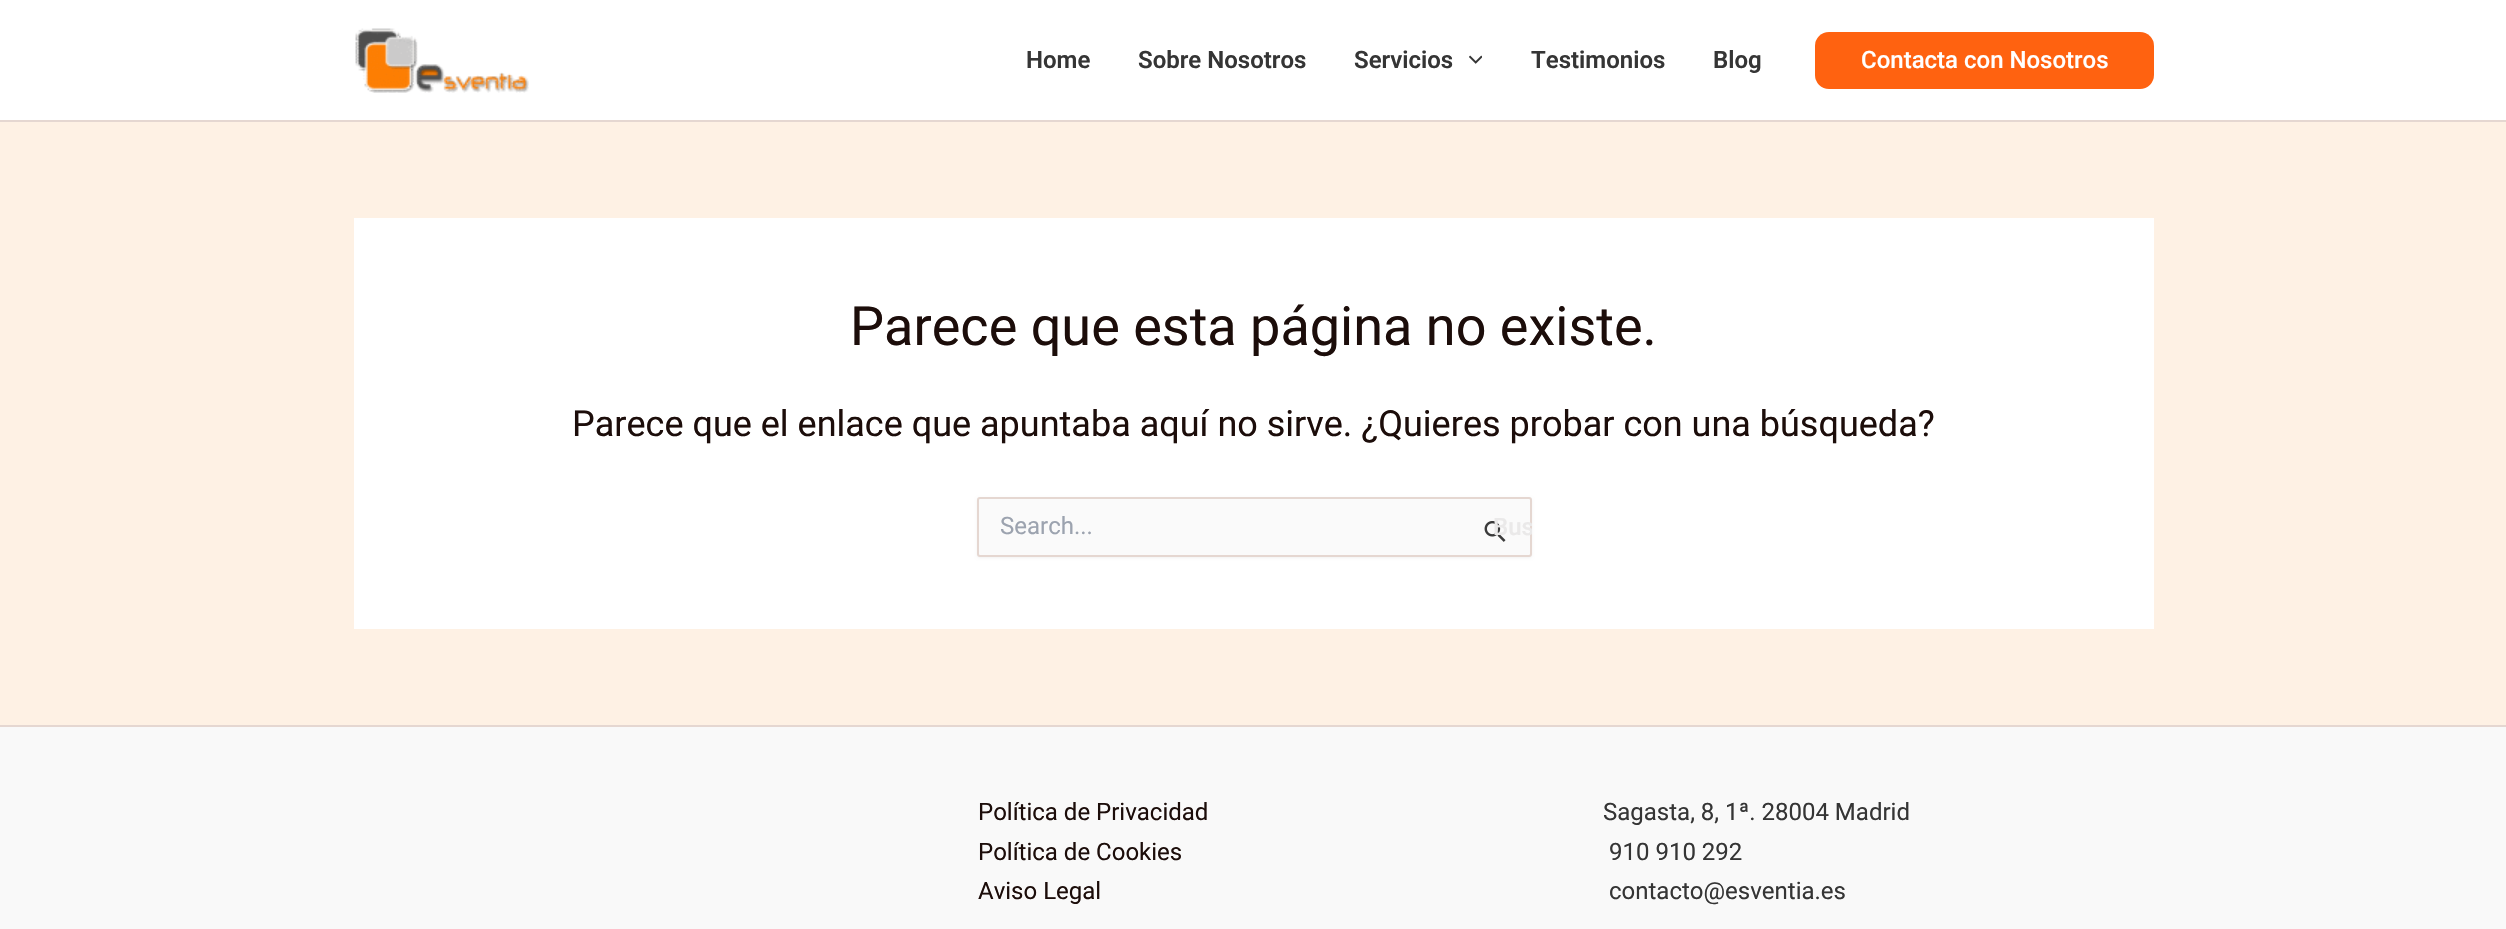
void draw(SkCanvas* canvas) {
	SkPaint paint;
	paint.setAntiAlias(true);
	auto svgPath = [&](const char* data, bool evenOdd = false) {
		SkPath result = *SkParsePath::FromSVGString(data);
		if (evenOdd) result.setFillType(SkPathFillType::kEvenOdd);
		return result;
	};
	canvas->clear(0xfffef1e4);
	paint.setColor(0xffffffff);
	canvas->drawRect(SkRect::MakeXYWH(0, 0, 2506, 120), paint);
	paint.setColor(0xffe5d7d1);
	canvas->drawRect(SkRect::MakeXYWH(0, 120, 2506, 2), paint);
	canvas->drawImageRect(SkImages::DeferredFromEncodedData(SkData::MakeFromFileName("img1.png")), SkRect::MakeXYWH(355, 28, 174, 65), SkSamplingOptions());
	SkFont f1(fontMgr->matchFamilyStyle("Roboto", SkFontStyle(600, SkFontStyle::kNormal_Width, SkFontStyle::kUpright_Slant)), 24);
	f1.setSubpixel(true);
	paint.setColor(0xff353535);
	canvas->drawString("Home", 1026, 68, f1, paint);
	canvas->drawString("Sobre Nosotros", 1138, 68, f1, paint);
	canvas->drawString("Servicios", 1354, 68, f1, paint);
	canvas->drawImageRect(SkImages::DeferredFromEncodedData(SkData::MakeFromFileName("img2.png")), SkRect::MakeXYWH(1469, 55, 13, 9), SkSamplingOptions());
	canvas->drawString("Testimonios", 1531, 68, f1, paint);
	canvas->drawString("Blog", 1713, 68, f1, paint);
	paint.setColor(0xffff6210);
	canvas->drawRoundRect(SkRect::MakeXYWH(1815, 32, 339, 57), 14, 14, paint);
	SkFont f2(fontMgr->matchFamilyStyle("Roboto", SkFontStyle(500, SkFontStyle::kNormal_Width, SkFontStyle::kUpright_Slant)), 24);
	f2.setSubpixel(true);
	paint.setColor(0xffffffff);
	canvas->drawString("Contacta con Nosotros", 1861, 68, f2, paint);
	canvas->drawRect(SkRect::MakeXYWH(354, 218, 1800, 411), paint);
	SkFont f3(fontMgr->matchFamilyStyle("Roboto", SkFontStyle::Normal()), 54);
	f3.setSubpixel(true);
	paint.setColor(0xff1c0d0a);
	canvas->drawString("Parece que esta página no existe.", 850, 345, f3, paint);
	SkFont f4(fontMgr->matchFamilyStyle("Roboto", SkFontStyle::Normal()), 36);
	f4.setSubpixel(true);
	canvas->drawString("Parece que el enlace que apuntaba aquí no sirve. ¿Quieres probar con una búsqueda?", 572, 436, f4, paint);
	paint.setColor(0x0d000000);
	paint.setMaskFilter(SkMaskFilter::MakeBlur(kNormal_SkBlurStyle, 1.5));
	canvas->drawRoundRect(SkRect::MakeXYWH(977, 498, 555, 60), 3, 3, paint);
	paint.setMaskFilter(nullptr);
	paint.setColor(0xfffafafa);
	canvas->drawRoundRect(SkRect::MakeXYWH(978, 498, 553, 58), 2, 2, paint);
	paint.setStroke(true);
	paint.setStrokeWidth(2);
	paint.setColor(0xffe5d7d1);
	canvas->drawRoundRect(SkRect::MakeXYWH(978, 498, 553, 58), 2, 2, paint);
	SkFont f5(fontMgr->matchFamilyStyle("Roboto", SkFontStyle::Normal()), 24);
	f5.setSubpixel(true);
	paint.setStroke(false);
	paint.setColor(0xff9ca3af);
	canvas->drawString("Search...", 1000, 534, f5, paint);
	canvas->drawImageRect(SkImages::DeferredFromEncodedData(SkData::MakeFromFileName("img3.png")), SkRect::MakeXYWH(1484, 521, 22, 21), SkSamplingOptions());
	canvas->save();
	canvas->clipPath(svgPath("M1467 497H1529C1530.5 497 1532 498.5 1532 500V557C1532 558.5 1530.5 560 1529 560H1467C1465.5 560 1464 558.5 1464 557V500C1464 498.5 1465.5 497 1467 497Z"), true);
	paint.setColor(0xffeae9e9);
	canvas->drawString("Bus", 1493, 535, f2, paint);
	canvas->restore();
	paint.setColor(0xfff9f9f9);
	canvas->drawRect(SkRect::MakeXYWH(0, 727, 2506, 202), paint);
	paint.setColor(0xffe5d7d1);
	canvas->drawRect(SkRect::MakeXYWH(0, 725, 2506, 2), paint);
	paint.setColor(0xff1c0d0a);
	canvas->drawString("Política de Privacidad", 978, 820, f5, paint);
	canvas->drawString("Política de Cookies", 978, 860, f5, paint);
	canvas->drawString("Aviso Legal", 978, 899, f5, paint);
	paint.setColor(0xff353535);
	canvas->drawString("Sagasta, 8, 1ª. 28004 Madrid", 1603, 820, f5, paint);
	canvas->drawString("910 910 292", 1609, 860, f5, paint);
	canvas->drawString("contacto@esventia.es", 1609, 899, f5, paint);
}
